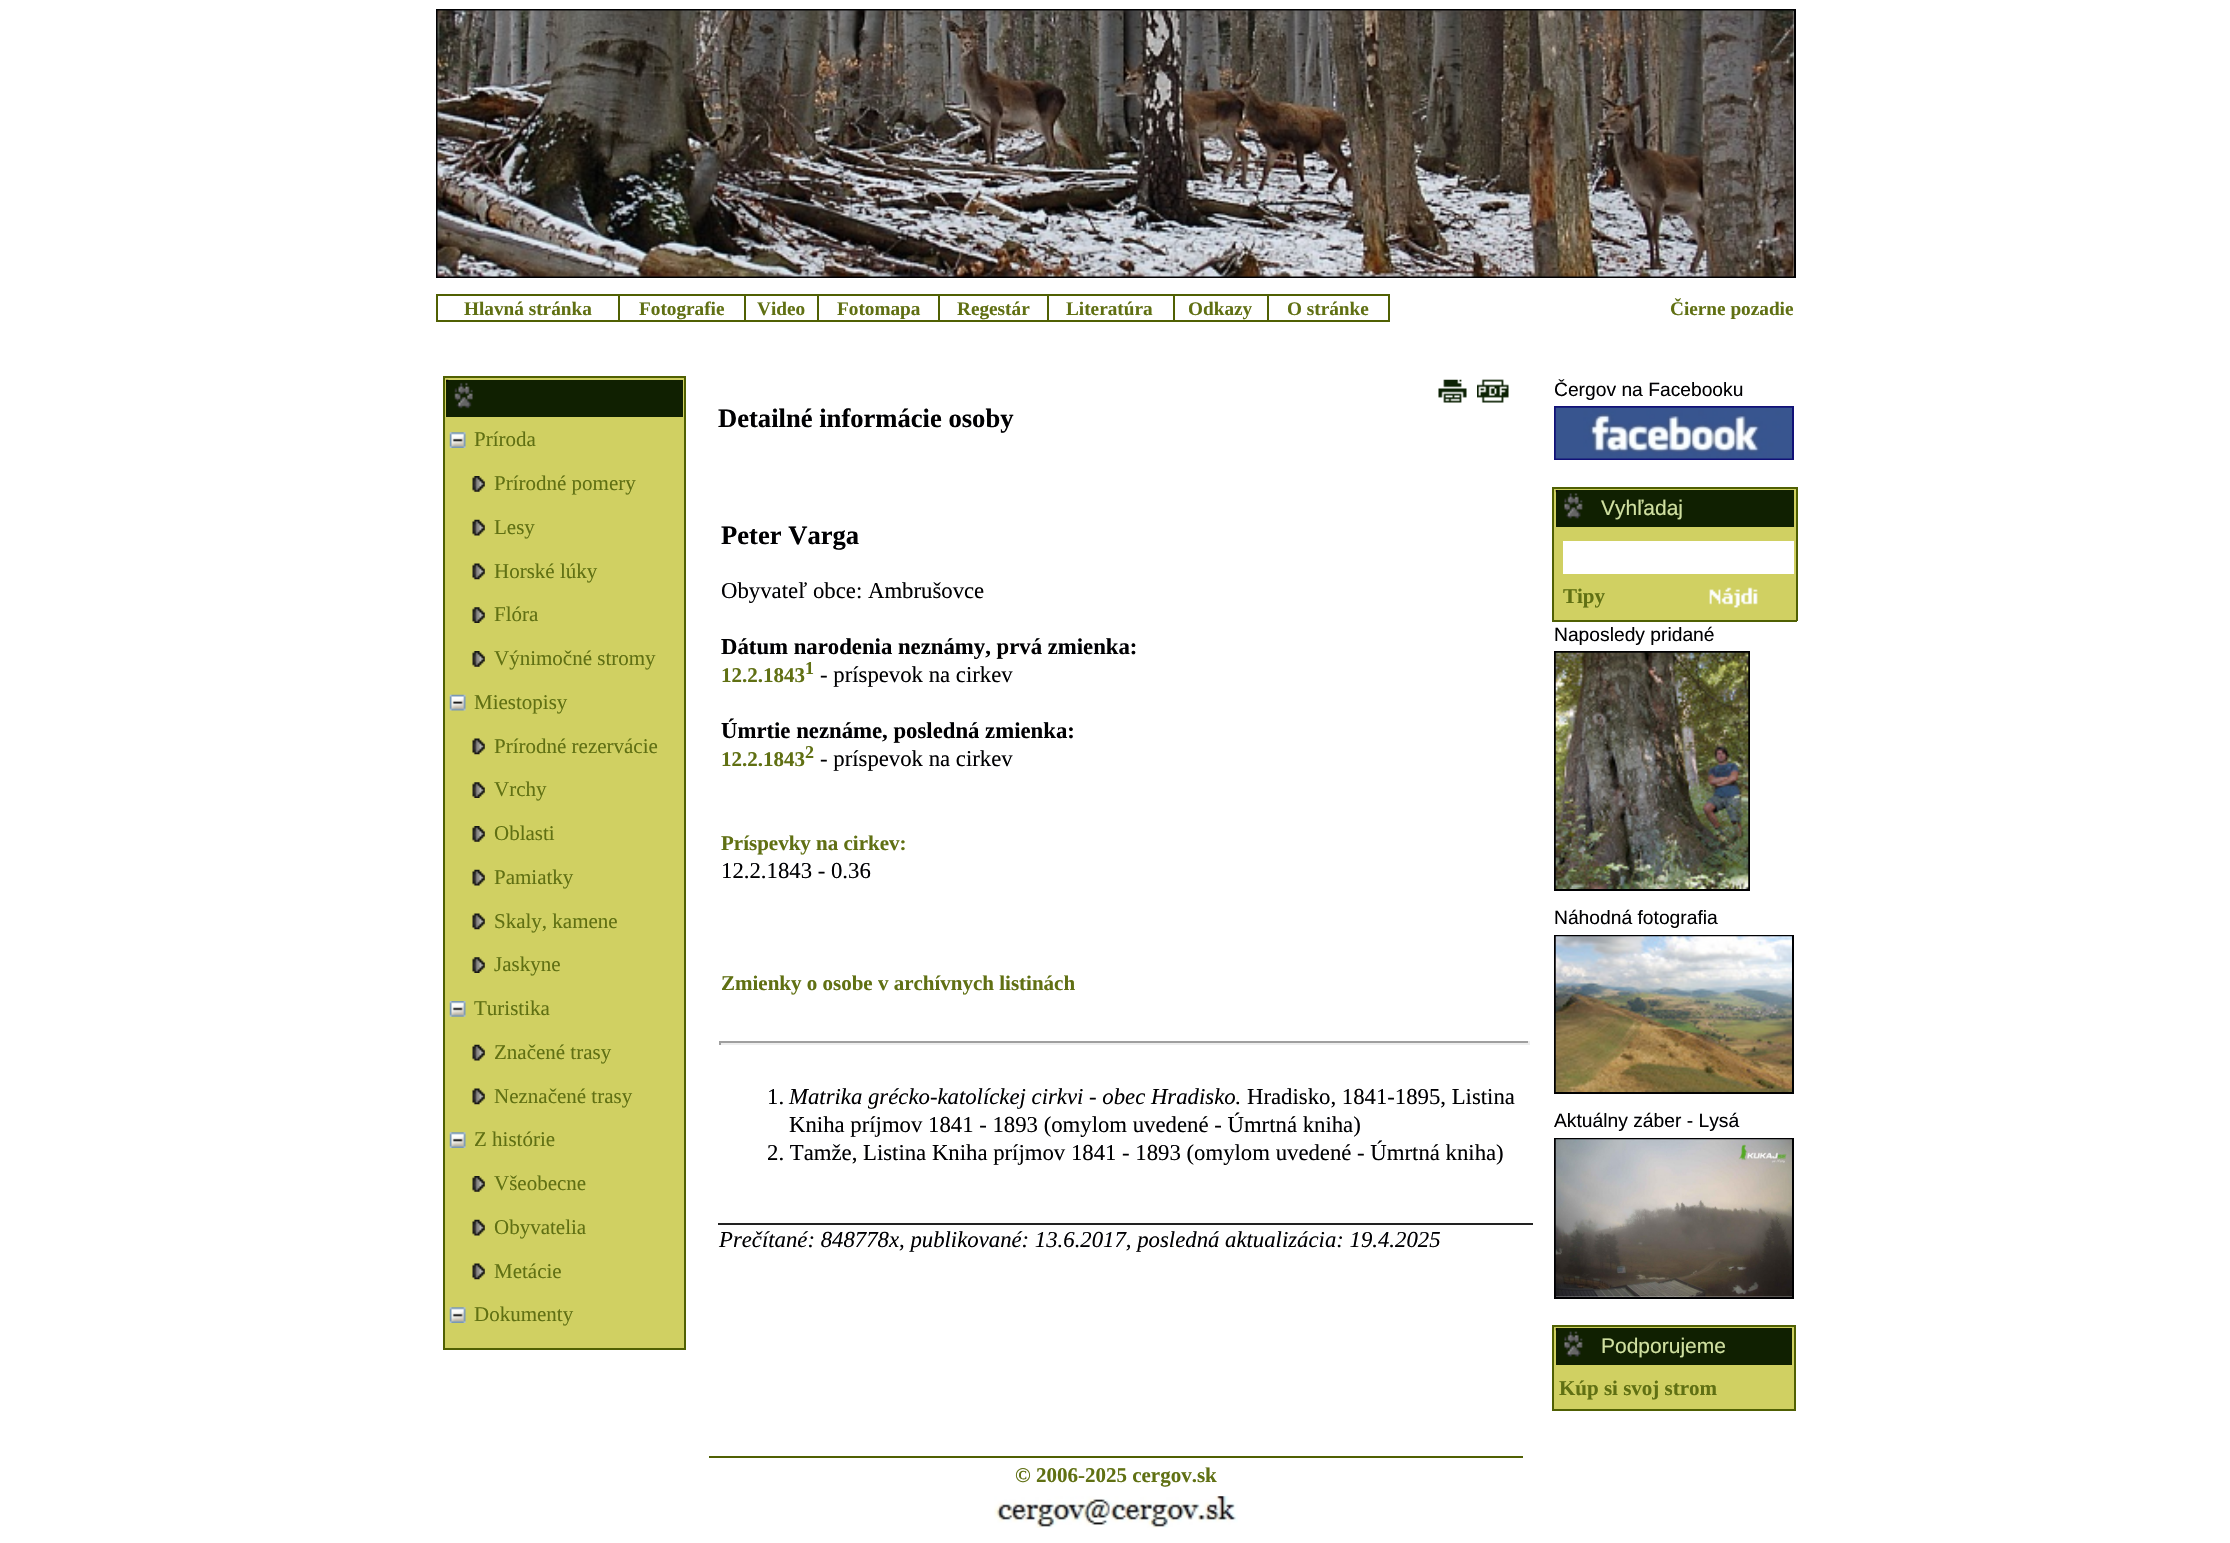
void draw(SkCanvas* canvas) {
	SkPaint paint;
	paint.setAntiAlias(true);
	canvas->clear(0xffffffff);
	paint.setStroke(true);
	paint.setStrokeWidth(2);
	paint.setColor(0xff000002);
	canvas->drawRect(SkRect::MakeXYWH(437, 10, 1358, 267), paint);
	canvas->drawImageRect(SkImages::DeferredFromEncodedData(SkData::MakeFromFileName("img1.png")), SkRect::MakeXYWH(437, 10, 1357, 267), SkSamplingOptions());
	paint.setStroke(false);
	paint.setColor(0xff506003);
	canvas->drawRect(SkRect::MakeXYWH(1267, 294, 123, 2), paint);
	canvas->drawRect(SkRect::MakeXYWH(1388, 294, 2, 28), paint);
	canvas->drawRect(SkRect::MakeXYWH(1267, 320, 123, 2), paint);
	canvas->drawRect(SkRect::MakeXYWH(1267, 294, 2, 28), paint);
	canvas->drawRect(SkRect::MakeXYWH(1173, 294, 96, 2), paint);
	canvas->drawRect(SkRect::MakeXYWH(1173, 320, 96, 2), paint);
	canvas->drawRect(SkRect::MakeXYWH(1173, 294, 2, 28), paint);
	canvas->drawRect(SkRect::MakeXYWH(1047, 294, 127, 2), paint);
	canvas->drawRect(SkRect::MakeXYWH(1047, 320, 127, 2), paint);
	canvas->drawRect(SkRect::MakeXYWH(1047, 294, 2, 28), paint);
	canvas->drawRect(SkRect::MakeXYWH(938, 294, 110, 2), paint);
	canvas->drawRect(SkRect::MakeXYWH(938, 320, 110, 2), paint);
	canvas->drawRect(SkRect::MakeXYWH(938, 294, 2, 28), paint);
	canvas->drawRect(SkRect::MakeXYWH(817, 294, 123, 2), paint);
	canvas->drawRect(SkRect::MakeXYWH(817, 320, 123, 2), paint);
	canvas->drawRect(SkRect::MakeXYWH(817, 294, 2, 28), paint);
	canvas->drawRect(SkRect::MakeXYWH(744, 294, 75, 2), paint);
	canvas->drawRect(SkRect::MakeXYWH(744, 320, 75, 2), paint);
	canvas->drawRect(SkRect::MakeXYWH(744, 294, 2, 28), paint);
	canvas->drawRect(SkRect::MakeXYWH(618, 294, 128, 2), paint);
	canvas->drawRect(SkRect::MakeXYWH(618, 320, 128, 2), paint);
	canvas->drawRect(SkRect::MakeXYWH(618, 294, 2, 28), paint);
	canvas->drawRect(SkRect::MakeXYWH(436, 294, 184, 2), paint);
	canvas->drawRect(SkRect::MakeXYWH(436, 320, 184, 2), paint);
	canvas->drawRect(SkRect::MakeXYWH(436, 294, 2, 28), paint);
	SkFont f1(fontMgr->matchFamilyStyle("Liberation Serif", SkFontStyle::Bold()), 19.25);
	f1.setSubpixel(true);
	paint.setColor(0xff607013);
	canvas->drawString("Hlavná stránka", 464, 315, f1, paint);
	canvas->drawString("Fotografie", 639, 315, f1, paint);
	canvas->drawString("Video", 757, 315, f1, paint);
	canvas->drawString("Fotomapa", 837, 315, f1, paint);
	canvas->drawString("Regestár", 957, 315, f1, paint);
	canvas->drawString("Literatúra", 1066, 315, f1, paint);
	canvas->drawString("Odkazy", 1188, 315, f1, paint);
	canvas->drawString("O stránke", 1287, 315, f1, paint);
	canvas->drawString("Čierne pozadie", 1670, 315, f1, paint);
	paint.setColor(0xffd0d062);
	canvas->drawRect(SkRect::MakeXYWH(445, 378, 239, 970), paint);
	paint.setColor(0xff506003);
	canvas->drawRect(SkRect::MakeXYWH(443, 376, 243, 2), paint);
	canvas->drawRect(SkRect::MakeXYWH(684, 376, 2, 973), paint);
	canvas->drawRect(SkRect::MakeXYWH(443, 1348, 243, 2), paint);
	canvas->drawRect(SkRect::MakeXYWH(443, 376, 2, 973), paint);
	paint.setColor(0xff102001);
	canvas->drawRect(SkRect::MakeXYWH(446, 380, 237, 37), paint);
	canvas->drawImageRect(SkImages::DeferredFromEncodedData(SkData::MakeFromFileName("img2.png")), SkRect::MakeXYWH(446, 379, 27, 30), SkSamplingOptions());
	canvas->drawImageRect(SkImages::DeferredFromEncodedData(SkData::MakeFromFileName("img3.png")), SkRect::MakeXYWH(449, 432, 17, 16), SkSamplingOptions());
	SkFont f2(fontMgr->matchFamilyStyle("Liberation Serif", SkFontStyle::Normal()), 21);
	f2.setSubpixel(true);
	paint.setColor(0xff607013);
	canvas->drawString("Príroda", 474, 446, f2, paint);
	canvas->drawImageRect(SkImages::DeferredFromEncodedData(SkData::MakeFromFileName("img4.png")), SkRect::MakeXYWH(472, 476, 13, 16), SkSamplingOptions());
	canvas->drawString("Prírodné pomery", 494, 490, f2, paint);
	canvas->drawImageRect(SkImages::DeferredFromEncodedData(SkData::MakeFromFileName("img5.png")), SkRect::MakeXYWH(472, 519, 13, 17), SkSamplingOptions());
	canvas->drawString("Lesy", 494, 534, f2, paint);
	canvas->drawImageRect(SkImages::DeferredFromEncodedData(SkData::MakeFromFileName("img6.png")), SkRect::MakeXYWH(472, 563, 13, 17), SkSamplingOptions());
	canvas->drawString("Horské lúky", 494, 578, f2, paint);
	canvas->drawImageRect(SkImages::DeferredFromEncodedData(SkData::MakeFromFileName("img7.png")), SkRect::MakeXYWH(472, 607, 13, 16), SkSamplingOptions());
	canvas->drawString("Flóra", 494, 621, f2, paint);
	canvas->drawImageRect(SkImages::DeferredFromEncodedData(SkData::MakeFromFileName("img4.png")), SkRect::MakeXYWH(472, 651, 13, 16), SkSamplingOptions());
	canvas->drawString("Výnimočné stromy", 494, 665, f2, paint);
	canvas->drawImageRect(SkImages::DeferredFromEncodedData(SkData::MakeFromFileName("img8.png")), SkRect::MakeXYWH(449, 694, 17, 17), SkSamplingOptions());
	canvas->drawString("Miestopisy", 474, 709, f2, paint);
	canvas->drawImageRect(SkImages::DeferredFromEncodedData(SkData::MakeFromFileName("img6.png")), SkRect::MakeXYWH(472, 738, 13, 17), SkSamplingOptions());
	canvas->drawString("Prírodné rezervácie", 494, 753, f2, paint);
	canvas->drawImageRect(SkImages::DeferredFromEncodedData(SkData::MakeFromFileName("img7.png")), SkRect::MakeXYWH(472, 782, 13, 16), SkSamplingOptions());
	canvas->drawString("Vrchy", 494, 796, f2, paint);
	canvas->drawImageRect(SkImages::DeferredFromEncodedData(SkData::MakeFromFileName("img4.png")), SkRect::MakeXYWH(472, 826, 13, 16), SkSamplingOptions());
	canvas->drawString("Oblasti", 494, 840, f2, paint);
	canvas->drawImageRect(SkImages::DeferredFromEncodedData(SkData::MakeFromFileName("img5.png")), SkRect::MakeXYWH(472, 869, 13, 17), SkSamplingOptions());
	canvas->drawString("Pamiatky", 494, 884, f2, paint);
	canvas->drawImageRect(SkImages::DeferredFromEncodedData(SkData::MakeFromFileName("img6.png")), SkRect::MakeXYWH(472, 913, 13, 17), SkSamplingOptions());
	canvas->drawString("Skaly, kamene", 494, 928, f2, paint);
	canvas->drawImageRect(SkImages::DeferredFromEncodedData(SkData::MakeFromFileName("img7.png")), SkRect::MakeXYWH(472, 957, 13, 16), SkSamplingOptions());
	canvas->drawString("Jaskyne", 494, 971, f2, paint);
	canvas->drawImageRect(SkImages::DeferredFromEncodedData(SkData::MakeFromFileName("img9.png")), SkRect::MakeXYWH(449, 1001, 17, 16), SkSamplingOptions());
	canvas->drawString("Turistika", 474, 1015, f2, paint);
	canvas->drawImageRect(SkImages::DeferredFromEncodedData(SkData::MakeFromFileName("img5.png")), SkRect::MakeXYWH(472, 1044, 13, 17), SkSamplingOptions());
	canvas->drawString("Značené trasy", 494, 1059, f2, paint);
	canvas->drawImageRect(SkImages::DeferredFromEncodedData(SkData::MakeFromFileName("img6.png")), SkRect::MakeXYWH(472, 1088, 13, 17), SkSamplingOptions());
	canvas->drawString("Neznačené trasy", 494, 1103, f2, paint);
	canvas->drawImageRect(SkImages::DeferredFromEncodedData(SkData::MakeFromFileName("img3.png")), SkRect::MakeXYWH(449, 1132, 17, 16), SkSamplingOptions());
	canvas->drawString("Z histórie", 474, 1146, f2, paint);
	canvas->drawImageRect(SkImages::DeferredFromEncodedData(SkData::MakeFromFileName("img4.png")), SkRect::MakeXYWH(472, 1176, 13, 16), SkSamplingOptions());
	canvas->drawString("Všeobecne", 494, 1190, f2, paint);
	canvas->drawImageRect(SkImages::DeferredFromEncodedData(SkData::MakeFromFileName("img5.png")), SkRect::MakeXYWH(472, 1219, 13, 17), SkSamplingOptions());
	canvas->drawString("Obyvatelia", 494, 1234, f2, paint);
	canvas->drawImageRect(SkImages::DeferredFromEncodedData(SkData::MakeFromFileName("img6.png")), SkRect::MakeXYWH(472, 1263, 13, 17), SkSamplingOptions());
	canvas->drawString("Metácie", 494, 1278, f2, paint);
	canvas->drawImageRect(SkImages::DeferredFromEncodedData(SkData::MakeFromFileName("img3.png")), SkRect::MakeXYWH(449, 1307, 17, 16), SkSamplingOptions());
	canvas->drawString("Dokumenty", 474, 1321, f2, paint);
	canvas->drawImageRect(SkImages::DeferredFromEncodedData(SkData::MakeFromFileName("img10.png")), SkRect::MakeXYWH(1438, 379, 29, 24), SkSamplingOptions());
	canvas->drawImageRect(SkImages::DeferredFromEncodedData(SkData::MakeFromFileName("img11.png")), SkRect::MakeXYWH(1477, 379, 32, 24), SkSamplingOptions());
	SkFont f3(fontMgr->matchFamilyStyle("Liberation Serif", SkFontStyle::Bold()), 26.6);
	f3.setSubpixel(true);
	paint.setColor(0xff000002);
	canvas->drawString("Detailné informácie osoby", 718, 427, f3, paint);
	canvas->drawString("Peter Varga", 721, 544, f3, paint);
	SkFont f4(fontMgr->matchFamilyStyle("Liberation Serif", SkFontStyle::Normal()), 22.75);
	f4.setSubpixel(true);
	canvas->drawString("Obyvateľ obce: Ambrušovce", 721, 598, f4, paint);
	SkFont f5(fontMgr->matchFamilyStyle("Liberation Serif", SkFontStyle::Bold()), 22.75);
	f5.setSubpixel(true);
	canvas->drawString("Dátum narodenia neznámy, prvá zmienka:", 721, 654, f5, paint);
	SkFont f6(fontMgr->matchFamilyStyle("Liberation Serif", SkFontStyle::Bold()), 21);
	f6.setSubpixel(true);
	paint.setColor(0xff607013);
	canvas->drawString("12.2.1843", 721, 682, f6, paint);
	SkFont f7(fontMgr->matchFamilyStyle("Liberation Serif", SkFontStyle::Bold()), 18);
	f7.setSubpixel(true);
	canvas->drawString("1", 805, 674, f7, paint);
	paint.setColor(0xff000002);
	canvas->drawString("- príspevok na cirkev", 820, 682, f4, paint);
	canvas->drawString("Úmrtie neznáme, posledná zmienka:", 721, 738, f5, paint);
	paint.setColor(0xff607013);
	canvas->drawString("12.2.1843", 721, 766, f6, paint);
	canvas->drawString("2", 805, 758, f7, paint);
	paint.setColor(0xff000002);
	canvas->drawString("- príspevok na cirkev", 820, 766, f4, paint);
	paint.setColor(0xff607013);
	canvas->drawString("Príspevky na cirkev:", 721, 850, f6, paint);
	paint.setColor(0xff000002);
	canvas->drawString("12.2.1843 - 0.36", 721, 878, f4, paint);
	paint.setColor(0xff607013);
	canvas->drawString("Zmienky o osobe v archívnych listinách", 721, 990, f6, paint);
	paint.setColor(0xff9f9f9f);
	canvas->drawRect(SkRect::MakeXYWH(719, 1041, 811, 2), paint);
	paint.setColor(0xffeeeeee);
	canvas->drawRect(SkRect::MakeXYWH(1528, 1041, 2, 4), paint);
	canvas->drawRect(SkRect::MakeXYWH(719, 1043, 811, 2), paint);
	paint.setColor(0xff9f9f9f);
	canvas->drawRect(SkRect::MakeXYWH(719, 1041, 2, 4), paint);
	paint.setColor(0xff000002);
	canvas->drawString("1.", 767, 1104, f4, paint);
	SkFont f8(fontMgr->matchFamilyStyle("Liberation Serif", SkFontStyle::Italic()), 22.75);
	f8.setSubpixel(true);
	canvas->drawString("Matrika grécko-katolíckej cirkvi - obec Hradisko.", 789, 1104, f8, paint);
	canvas->drawString("Hradisko, 1841-1895, Listina", 1247, 1104, f4, paint);
	canvas->drawString("Kniha príjmov 1841 - 1893 (omylom uvedené - Úmrtná kniha)", 789, 1132, f4, paint);
	canvas->drawString("2. Tamže, Listina Kniha príjmov 1841 - 1893 (omylom uvedené - Úmrtná kniha)", 767, 1160, f4, paint);
	paint.setColor(0xff222222);
	canvas->drawRect(SkRect::MakeXYWH(718, 1223, 815, 2), paint);
	paint.setColor(0xff000002);
	canvas->drawString("Prečítané: 848778x, publikované: 13.6.2017, posledná aktualizácia: 19.4.2025", 719, 1247, f8, paint);
	SkFont f9(fontMgr->matchFamilyStyle("Liberation Sans", SkFontStyle::Normal()), 19.25);
	f9.setSubpixel(true);
	canvas->drawString("Čergov na Facebooku", 1554, 396, f9, paint);
	paint.setStroke(true);
	paint.setColor(0xff111177);
	canvas->drawRect(SkRect::MakeXYWH(1555, 407, 238, 52), paint);
	canvas->drawImageRect(SkImages::DeferredFromEncodedData(SkData::MakeFromFileName("img12.png")), SkRect::MakeXYWH(1555, 407, 237, 52), SkSamplingOptions());
	paint.setStroke(false);
	paint.setColor(0xffd0d062);
	canvas->drawRect(SkRect::MakeXYWH(1554, 489, 242, 131), paint);
	paint.setColor(0xff506003);
	canvas->drawRect(SkRect::MakeXYWH(1552, 487, 245, 2), paint);
	canvas->drawRect(SkRect::MakeXYWH(1796, 487, 2, 134), paint);
	canvas->drawRect(SkRect::MakeXYWH(1552, 620, 245, 2), paint);
	canvas->drawRect(SkRect::MakeXYWH(1552, 487, 2, 134), paint);
	paint.setColor(0xff102001);
	canvas->drawRect(SkRect::MakeXYWH(1556, 490, 238, 37), paint);
	canvas->drawImageRect(SkImages::DeferredFromEncodedData(SkData::MakeFromFileName("img13.png")), SkRect::MakeXYWH(1555, 490, 28, 29), SkSamplingOptions());
	SkFont f10(fontMgr->matchFamilyStyle("Liberation Sans", SkFontStyle::Normal()), 21);
	f10.setSubpixel(true);
	paint.setColor(0xffd0e0a0);
	canvas->drawString("Vyhľadaj", 1601, 515, f10, paint);
	paint.setColor(0xffffffff);
	canvas->drawRect(SkRect::MakeXYWH(1563, 541, 231, 33), paint);
	paint.setColor(0xff607013);
	canvas->drawString("Tipy", 1563, 603, f6, paint);
	canvas->drawImageRect(SkImages::DeferredFromEncodedData(SkData::MakeFromFileName("img14.png")), SkRect::MakeXYWH(1709, 587, 49, 21), SkSamplingOptions());
	paint.setColor(0xff000002);
	canvas->drawString("Naposledy pridané", 1554, 641, f9, paint);
	paint.setStroke(true);
	canvas->drawRect(SkRect::MakeXYWH(1555, 652, 194, 238), paint);
	canvas->drawImageRect(SkImages::DeferredFromEncodedData(SkData::MakeFromFileName("img15.png")), SkRect::MakeXYWH(1555, 652, 194, 237), SkSamplingOptions());
	paint.setStroke(false);
	canvas->drawString("Náhodná fotografia", 1554, 924, f9, paint);
	paint.setStroke(true);
	canvas->drawRect(SkRect::MakeXYWH(1555, 936, 238, 157), paint);
	canvas->drawImageRect(SkImages::DeferredFromEncodedData(SkData::MakeFromFileName("img16.png")), SkRect::MakeXYWH(1555, 936, 237, 156), SkSamplingOptions());
	paint.setStroke(false);
	canvas->drawString("Aktuálny záber - Lysá", 1554, 1127, f9, paint);
	paint.setStroke(true);
	canvas->drawRect(SkRect::MakeXYWH(1555, 1139, 238, 159), paint);
	canvas->drawImageRect(SkImages::DeferredFromEncodedData(SkData::MakeFromFileName("img17.png")), SkRect::MakeXYWH(1555, 1139, 237, 158), SkSamplingOptions());
	paint.setStroke(false);
	paint.setColor(0xffd0d062);
	canvas->drawRect(SkRect::MakeXYWH(1554, 1327, 240, 82), paint);
	paint.setColor(0xff506003);
	canvas->drawRect(SkRect::MakeXYWH(1552, 1325, 244, 2), paint);
	canvas->drawRect(SkRect::MakeXYWH(1794, 1325, 2, 86), paint);
	canvas->drawRect(SkRect::MakeXYWH(1552, 1409, 244, 2), paint);
	canvas->drawRect(SkRect::MakeXYWH(1552, 1325, 2, 86), paint);
	paint.setColor(0xff102001);
	canvas->drawRect(SkRect::MakeXYWH(1556, 1328, 236, 37), paint);
	canvas->drawImageRect(SkImages::DeferredFromEncodedData(SkData::MakeFromFileName("img18.png")), SkRect::MakeXYWH(1555, 1328, 28, 29), SkSamplingOptions());
	paint.setColor(0xffd0e0a0);
	canvas->drawString("Podporujeme", 1601, 1353, f10, paint);
	paint.setColor(0xff607013);
	canvas->drawString("Kúp si svoj strom", 1559, 1395, f6, paint);
	paint.setColor(0xff506003);
	canvas->drawRect(SkRect::MakeXYWH(709, 1456, 814, 2), paint);
	paint.setColor(0xff607013);
	canvas->drawString("© 2006-2025 cergov.sk", 1015, 1482, f6, paint);
	canvas->drawImageRect(SkImages::DeferredFromEncodedData(SkData::MakeFromFileName("img19.png")), SkRect::MakeXYWH(994, 1496, 244, 32), SkSamplingOptions());
}
